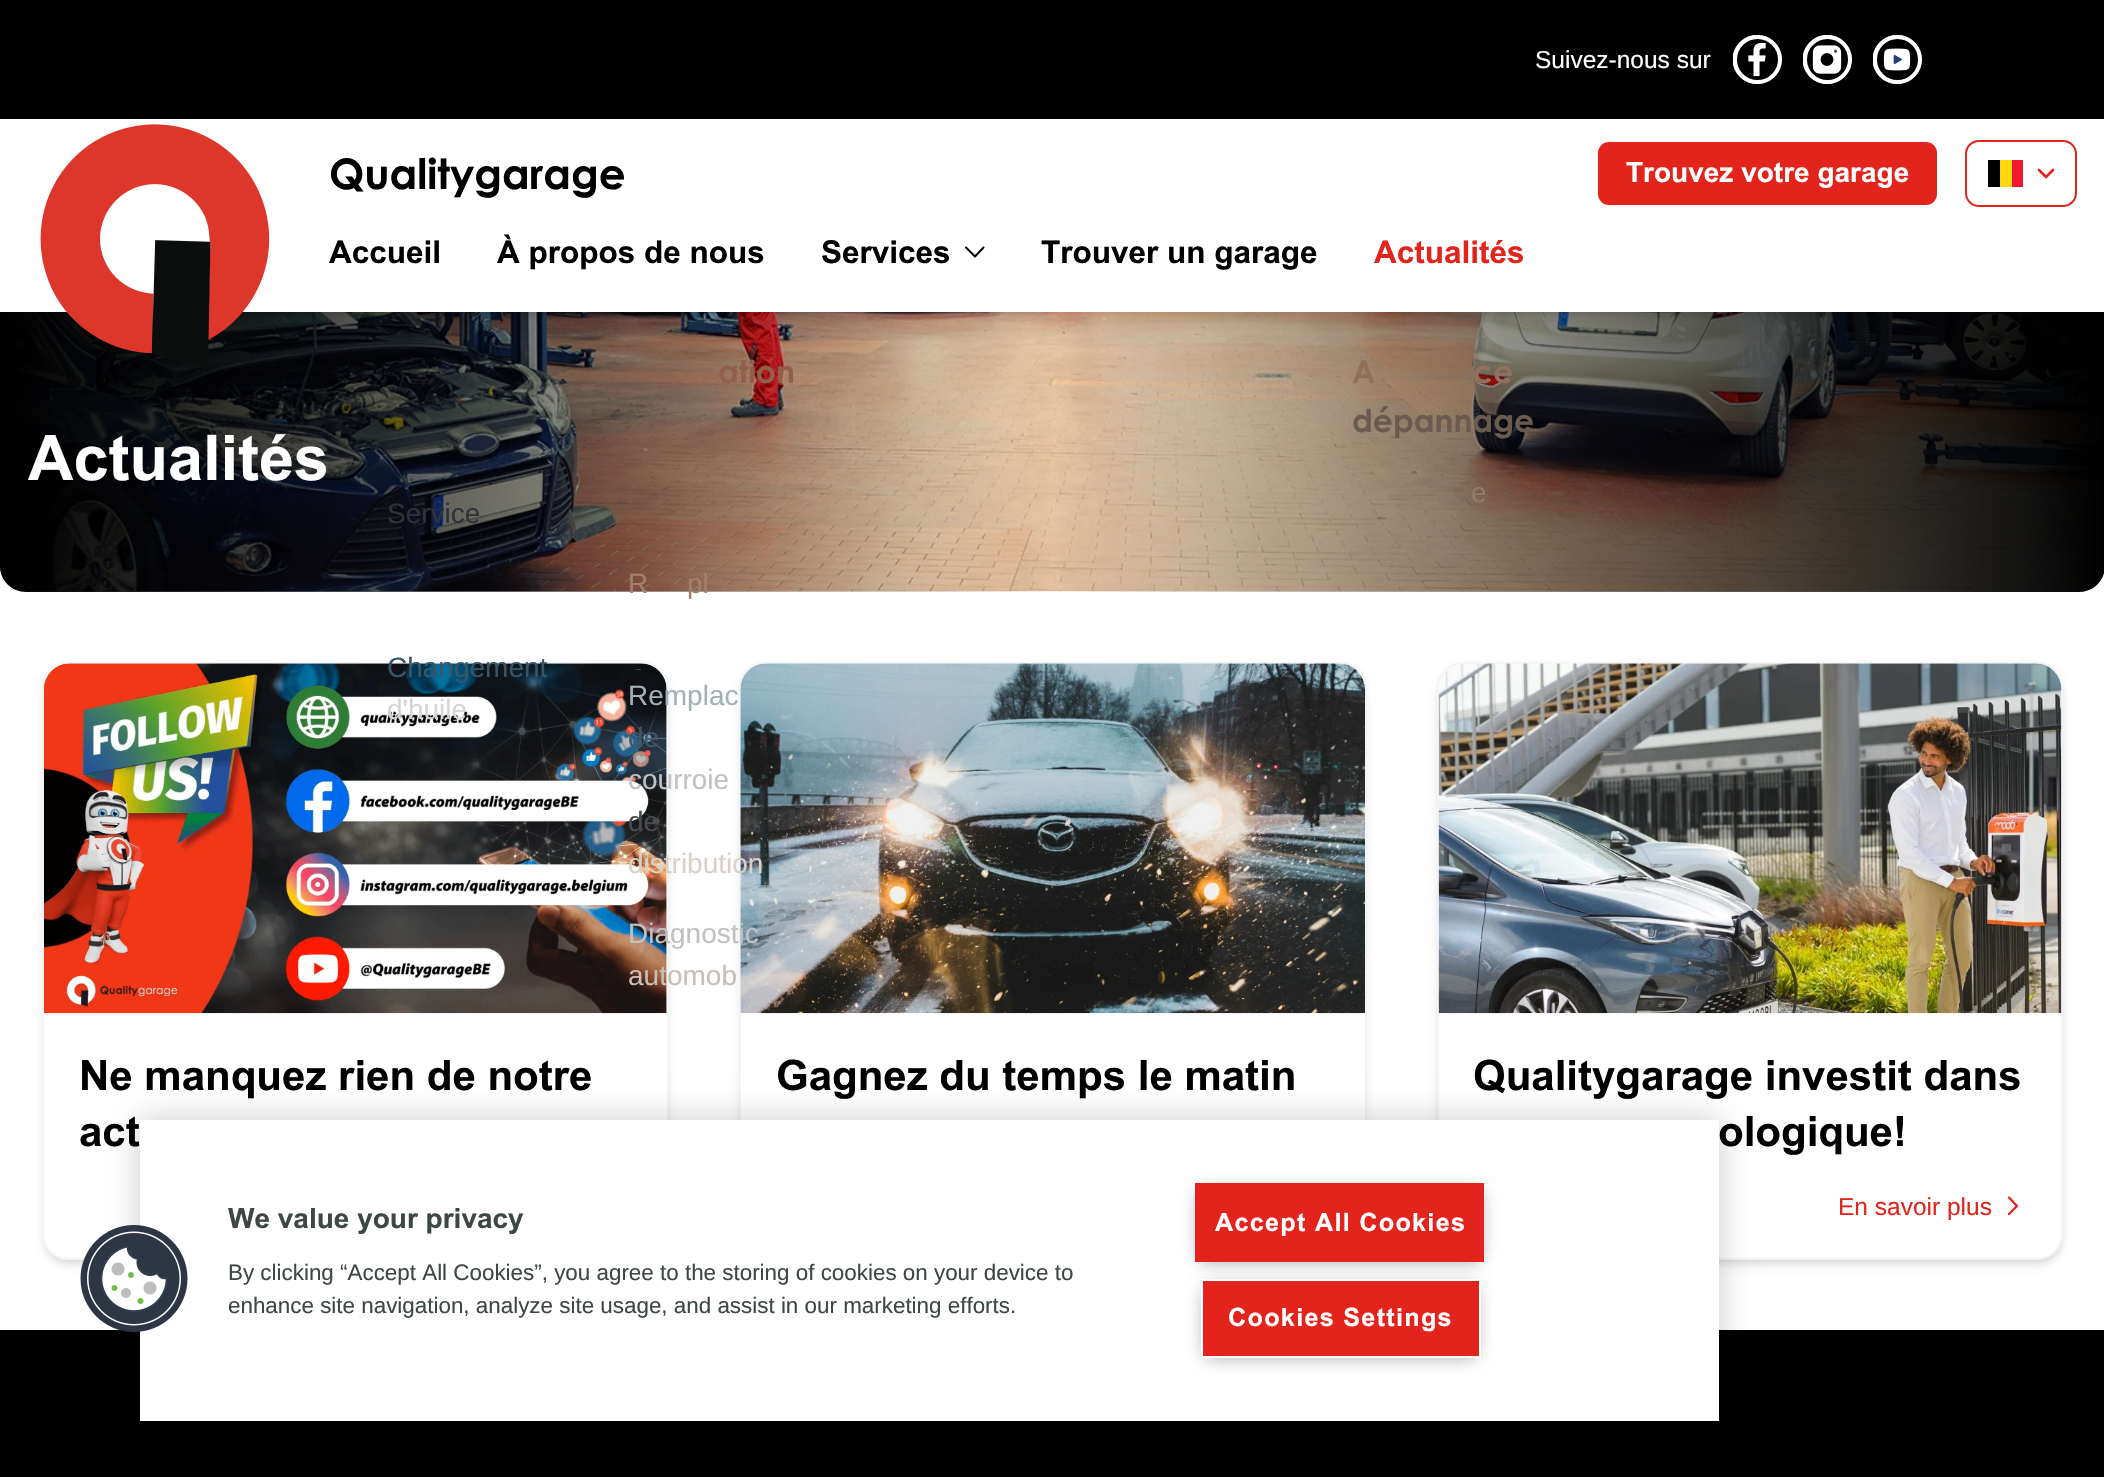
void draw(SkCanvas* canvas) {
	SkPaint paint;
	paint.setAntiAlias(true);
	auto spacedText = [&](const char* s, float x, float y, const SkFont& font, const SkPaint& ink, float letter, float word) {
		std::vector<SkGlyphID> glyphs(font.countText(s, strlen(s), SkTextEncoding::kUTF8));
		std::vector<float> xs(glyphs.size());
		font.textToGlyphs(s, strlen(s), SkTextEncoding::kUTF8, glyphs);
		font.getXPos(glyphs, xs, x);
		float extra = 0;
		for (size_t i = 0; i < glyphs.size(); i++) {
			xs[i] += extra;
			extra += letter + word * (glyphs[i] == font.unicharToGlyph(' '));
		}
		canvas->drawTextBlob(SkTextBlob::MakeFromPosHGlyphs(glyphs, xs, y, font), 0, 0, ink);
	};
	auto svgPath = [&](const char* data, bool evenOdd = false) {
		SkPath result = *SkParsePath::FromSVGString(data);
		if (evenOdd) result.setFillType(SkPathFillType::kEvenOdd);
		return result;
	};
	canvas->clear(0xffffffff);
	canvas->drawImageRect(SkImages::DeferredFromEncodedData(SkData::MakeFromFileName("img5.png")), SkRect::MakeXYWH(0, 312, 2104, 280), SkSamplingOptions());
	{
		const SkColor colors[] = {0xff000000, 0x00000000, 0xff000000};
		const float stops[] = {0, 0.5, 1};
		const SkPoint ends[] = {{0, 452}, {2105, 451}};
		paint.setShader(SkGradientShader::MakeLinear(ends, colors, stops, 3, SkTileMode::kClamp));
		paint.setAlpha(255);
	}
	canvas->drawPath(svgPath("M0 312H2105V566C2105 580.5 2093.5 592 2079 592H26C11.5 592 0 580.5 0 566Z"), paint);
	paint.setShader(nullptr);
	paint.setColor(0x1a000000);
	paint.setMaskFilter(SkMaskFilter::MakeBlur(kNormal_SkBlurStyle, 3.5));
	canvas->drawRect(SkRect::MakeXYWH(4, 7, 2098, 305), paint);
	paint.setMaskFilter(nullptr);
	paint.setMaskFilter(SkMaskFilter::MakeBlur(kNormal_SkBlurStyle, 5));
	canvas->drawRect(SkRect::MakeXYWH(2, 9, 2102, 308), paint);
	paint.setMaskFilter(nullptr);
	paint.setColor(0xffffffff);
	canvas->drawRect(SkRect::MakeXYWH(0, 119, 2104, 193), paint);
	paint.setColor(0xff000000);
	canvas->drawRect(SkRect::MakeXYWH(0, 0, 2104, 119), paint);
	SkFont f1(fontMgr->matchFamilyStyle("Liberation Sans", SkFontStyle::Normal()), 24.5);
	f1.setSubpixel(true);
	paint.setColor(0xffffffff);
	canvas->drawString("Suivez-nous sur", 1535, 68, f1, paint);
	canvas->drawImageRect(SkImages::DeferredFromEncodedData(SkData::MakeFromFileName("img1.png")), SkRect::MakeXYWH(1733, 35, 49, 49), SkSamplingOptions());
	paint.setStroke(true);
	paint.setStrokeWidth(4);
	canvas->drawCircle(1757.5, 59.5, 22.5, paint);
	canvas->drawImageRect(SkImages::DeferredFromEncodedData(SkData::MakeFromFileName("img2.png")), SkRect::MakeXYWH(1803, 35, 49, 49), SkSamplingOptions());
	canvas->drawCircle(1827.5, 59.5, 22.5, paint);
	canvas->drawImageRect(SkImages::DeferredFromEncodedData(SkData::MakeFromFileName("img3.png")), SkRect::MakeXYWH(1873, 35, 49, 49), SkSamplingOptions());
	canvas->drawCircle(1897.5, 59.5, 22.5, paint);
	canvas->drawImageRect(SkImages::DeferredFromEncodedData(SkData::MakeFromFileName("img4.png")), SkRect::MakeXYWH(40, 124, 230, 245), SkSamplingOptions());
	SkFont f2(fontMgr->matchFamilyStyle("Century Gothic", SkFontStyle::Bold()), 42);
	f2.setSubpixel(true);
	paint.setStroke(false);
	paint.setColor(0xff000000);
	canvas->drawString("Qualitygarage", 329, 189, f2, paint);
	paint.setColor(0xffe2241d);
	canvas->drawRoundRect(SkRect::MakeXYWH(1598, 142, 339, 63), 11, 11, paint);
	SkFont f3(fontMgr->matchFamilyStyle("Arial", SkFontStyle::Bold()), 28);
	f3.setSubpixel(true);
	paint.setColor(0xffffffff);
	canvas->drawString("Trouvez votre garage", 1626, 182, f3, paint);
	paint.setStroke(true);
	paint.setStrokeWidth(2);
	paint.setColor(0xffe2241d);
	canvas->drawRoundRect(SkRect::MakeXYWH(1966, 141, 110, 65), 13, 13, paint);
	paint.setStroke(false);
	paint.setColor(0xff000001);
	canvas->drawRect(SkRect::MakeXYWH(1988, 160, 12, 27), paint);
	paint.setColor(0xffffd90c);
	canvas->drawRect(SkRect::MakeXYWH(2000, 160, 12, 27), paint);
	paint.setColor(0xfff31830);
	canvas->drawRect(SkRect::MakeXYWH(2012, 160, 11, 27), paint);
	paint.setStroke(true);
	paint.setStrokeWidth(2.6);
	paint.setStrokeCap(SkPaint::kRound_Cap);
	paint.setStrokeJoin(SkPaint::kRound_Join);
	paint.setColor(0xffe2241d);
	canvas->drawPath(svgPath("M2039 170L2046 177L2053 170"), paint);
	SkFont f4(fontMgr->matchFamilyStyle("Arial", SkFontStyle::Bold()), 31.5);
	f4.setSubpixel(true);
	paint.setStroke(false);
	paint.setColor(0xff000000);
	canvas->drawString("Accueil", 329, 263, f4, paint);
	canvas->drawString("À propos de nous", 497, 263, f4, paint);
	canvas->drawString("Services", 821, 263, f4, paint);
	paint.setStroke(true);
	paint.setStrokeWidth(2);
	canvas->drawPath(svgPath("M983.5 247.5L975 256.5L966 247.5"), paint);
	SkFont f5(fontMgr->matchFamilyStyle("Century Gothic", SkFontStyle::Bold()), 31.5);
	f5.setSubpixel(true);
	paint.setStroke(false);
	paint.setColor(0xff925f4d);
	canvas->drawString("ation", 718, 383, f5, paint);
	SkFont f6(fontMgr->matchFamilyStyle("Liberation Sans", SkFontStyle::Normal()), 28);
	f6.setSubpixel(true);
	paint.setColor(0xffa2806d);
	canvas->drawString("R", 628, 593, f6, paint);
	canvas->drawString("pl", 687, 593, f6, paint);
	paint.setColor(0x1a000000);
	paint.setMaskFilter(SkMaskFilter::MakeBlur(kNormal_SkBlurStyle, 3.5));
	canvas->drawRoundRect(SkRect::MakeXYWH(46, 669, 619, 591), 23, 23, paint);
	paint.setMaskFilter(nullptr);
	paint.setMaskFilter(SkMaskFilter::MakeBlur(kNormal_SkBlurStyle, 5));
	canvas->drawRoundRect(SkRect::MakeXYWH(44, 670, 623, 595), 25, 25, paint);
	paint.setMaskFilter(nullptr);
	paint.setColor(0xffffffff);
	canvas->drawRoundRect(SkRect::MakeXYWH(43, 663, 625, 596), 25, 25, paint);
	paint.setStroke(true);
	paint.setStrokeCap(SkPaint::kButt_Cap);
	paint.setStrokeJoin(SkPaint::kMiter_Join);
	paint.setColor(0xfff3f4f6);
	canvas->drawRoundRect(SkRect::MakeXYWH(43, 663, 625, 596), 25, 25, paint);
	canvas->drawImageRect(SkImages::DeferredFromEncodedData(SkData::MakeFromFileName("img6.png")), SkRect::MakeXYWH(44, 663, 623, 351), SkSamplingOptions());
	paint.setStroke(false);
	paint.setColor(0x1a000000);
	paint.setMaskFilter(SkMaskFilter::MakeBlur(kNormal_SkBlurStyle, 5));
	canvas->drawRoundRect(SkRect::MakeXYWH(740, 670, 625, 595), 25, 25, paint);
	paint.setMaskFilter(nullptr);
	paint.setColor(0xffa3b0b6);
	canvas->drawString("Remplac", 628, 705, f6, paint);
	paint.setColor(0xff445566);
	canvas->drawString("de", 628, 747, f6, paint);
	paint.setColor(0xffc0c1c2);
	canvas->drawString("courroie", 628, 789, f6, paint);
	paint.setColor(0xff494a4b);
	canvas->drawString("de", 628, 831, f6, paint);
	paint.setColor(0xffffffff);
	canvas->drawRoundRect(SkRect::MakeXYWH(740, 663, 626, 596), 25, 25, paint);
	paint.setStroke(true);
	paint.setColor(0xfff3f4f6);
	canvas->drawRoundRect(SkRect::MakeXYWH(740, 663, 626, 596), 25, 25, paint);
	canvas->drawImageRect(SkImages::DeferredFromEncodedData(SkData::MakeFromFileName("img7.png")), SkRect::MakeXYWH(740, 663, 625, 351), SkSamplingOptions());
	paint.setStroke(false);
	paint.setColor(0xffdad0c8);
	canvas->drawString("distribution", 628, 873, f6, paint);
	paint.setColor(0xffc0c1c2);
	canvas->drawString("Diagnostic", 628, 943, f6, paint);
	paint.setColor(0xffc9bdb7);
	canvas->drawString("automob", 628, 985, f6, paint);
	paint.setColor(0xff8f715b);
	canvas->drawString("A", 1352, 383, f5, paint);
	canvas->drawString("ce", 1473, 383, f5, paint);
	paint.setColor(0xff695b4f);
	canvas->drawString("dépannage", 1352, 432, f5, paint);
	paint.setColor(0xff907c67);
	canvas->drawString("e", 1471, 502, f6, paint);
	paint.setColor(0xff2f3239);
	canvas->drawString("Service", 387, 523, f6, paint);
	paint.setColor(0xff365668);
	canvas->drawString("Changement", 387, 677, f6, paint);
	paint.setColor(0xffd5d5d5);
	canvas->drawString("d'huile", 387, 719, f6, paint);
	paint.setColor(0xff000000);
	canvas->drawString("Trouver un garage", 1041, 263, f4, paint);
	paint.setColor(0xffe2241d);
	canvas->drawString("Actualités", 1374, 263, f4, paint);
	SkFont f7(fontMgr->matchFamilyStyle("Arial", SkFontStyle::Bold()), 63);
	f7.setSubpixel(true);
	paint.setColor(0xffffffff);
	canvas->drawString("Actualités", 28, 480, f7, paint);
	SkFont f8(fontMgr->matchFamilyStyle("Arial", SkFontStyle::Bold()), 42);
	f8.setSubpixel(true);
	paint.setColor(0xff000000);
	canvas->drawString("Ne manquez rien de notre", 79, 1090, f8, paint);
	canvas->drawString("act", 79, 1146, f8, paint);
	canvas->drawString("Gagnez du temps le matin", 776, 1090, f8, paint);
	paint.setColor(0x1a000000);
	paint.setMaskFilter(SkMaskFilter::MakeBlur(kNormal_SkBlurStyle, 3.5));
	canvas->drawRoundRect(SkRect::MakeXYWH(1440, 669, 620, 591), 23, 23, paint);
	paint.setMaskFilter(nullptr);
	paint.setMaskFilter(SkMaskFilter::MakeBlur(kNormal_SkBlurStyle, 5));
	canvas->drawRoundRect(SkRect::MakeXYWH(1439, 670, 623, 595), 25, 25, paint);
	paint.setMaskFilter(nullptr);
	paint.setColor(0xffffffff);
	canvas->drawRoundRect(SkRect::MakeXYWH(1438, 663, 624, 596), 25, 25, paint);
	paint.setStroke(true);
	paint.setColor(0xfff3f4f6);
	canvas->drawRoundRect(SkRect::MakeXYWH(1438, 663, 624, 596), 25, 25, paint);
	canvas->drawImageRect(SkImages::DeferredFromEncodedData(SkData::MakeFromFileName("img8.png")), SkRect::MakeXYWH(1438, 663, 624, 351), SkSamplingOptions());
	paint.setStroke(false);
	paint.setColor(0xff000000);
	canvas->drawString("Qualitygarage investit dans", 1473, 1090, f8, paint);
	canvas->drawString("ologique!", 1718, 1146, f8, paint);
	paint.setColor(0xffe2241d);
	canvas->drawString("En savoir plus", 1838, 1215, f1, paint);
	paint.setStroke(true);
	paint.setStrokeWidth(2.3);
	paint.setStrokeCap(SkPaint::kRound_Cap);
	paint.setStrokeJoin(SkPaint::kRound_Join);
	canvas->drawPath(svgPath("M2009 1197.5L2017 1206L2009 1214"), paint);
	paint.setStroke(false);
	paint.setColor(0xff000000);
	canvas->drawRect(SkRect::MakeXYWH(0, 1330, 2104, 147), paint);
	paint.setColor(0x33000000);
	paint.setMaskFilter(SkMaskFilter::MakeBlur(kNormal_SkBlurStyle, 16));
	canvas->drawRect(SkRect::MakeXYWH(140, 1120, 1579, 301), paint);
	paint.setMaskFilter(nullptr);
	paint.setColor(0xffffffff);
	canvas->drawRect(SkRect::MakeXYWH(140, 1120, 1579, 301), paint);
	canvas->drawImageRect(SkImages::DeferredFromEncodedData(SkData::MakeFromFileName("img9.png")), SkRect::MakeXYWH(80, 1225, 108, 107), SkSamplingOptions());
	paint.setColor(0xff3e4646);
	canvas->drawString("We value your privacy", 228, 1228, f3, paint);
	SkFont f9(fontMgr->matchFamilyStyle("Liberation Sans", SkFontStyle::Normal()), 22.4);
	f9.setSubpixel(true);
	canvas->drawString("By clicking “Accept All Cookies”, you agree to the storing of cookies on your device to", 228, 1280, f9, paint);
	canvas->drawString("enhance site navigation, analyze site usage, and assist in our marketing efforts.", 228, 1313, f9, paint);
	paint.setColor(0xff999999);
	paint.setMaskFilter(SkMaskFilter::MakeBlur(kNormal_SkBlurStyle, 9));
	canvas->drawRect(SkRect::MakeXYWH(1201, 1192, 278, 68), paint);
	paint.setMaskFilter(nullptr);
	paint.setColor(0xffe2241d);
	canvas->drawRect(SkRect::MakeXYWH(1195, 1183, 289, 79), paint);
	SkFont f10(fontMgr->matchFamilyStyle("Arial", SkFontStyle::Bold()), 25.25);
	f10.setSubpixel(true);
	paint.setColor(0xffffffff);
	spacedText("Accept All Cookies", 1215, 1231, f10, paint, 1.25, 0);
	paint.setColor(0xff999999);
	paint.setMaskFilter(SkMaskFilter::MakeBlur(kNormal_SkBlurStyle, 9));
	canvas->drawRect(SkRect::MakeXYWH(1206, 1288, 269, 68), paint);
	paint.setMaskFilter(nullptr);
	paint.setColor(0xffe2241d);
	canvas->drawRect(SkRect::MakeXYWH(1202, 1280, 278, 77), paint);
	paint.setStroke(true);
	paint.setStrokeWidth(2);
	paint.setStrokeCap(SkPaint::kButt_Cap);
	paint.setStrokeJoin(SkPaint::kMiter_Join);
	paint.setColor(0xffffffff);
	canvas->drawRect(SkRect::MakeXYWH(1202, 1280, 278, 77), paint);
	paint.setStroke(false);
	spacedText("Cookies Settings", 1228, 1326, f10, paint, 1.25, 0);
}
